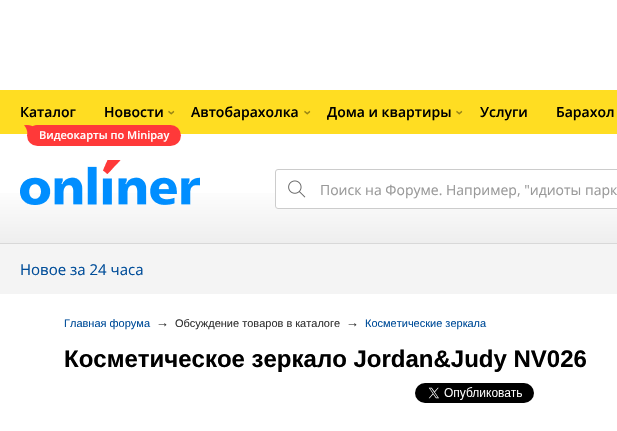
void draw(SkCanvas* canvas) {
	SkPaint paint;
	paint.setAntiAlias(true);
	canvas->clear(0xffffffff);
	{
		const SkColor colors[] = {0xffffffff, 0xffffffff, 0xffe3e3e3};
		const float stops[] = {0, 0.5, 1};
		const SkPoint ends[] = {{500, 90}, {500, 280}};
		paint.setShader(SkGradientShader::MakeLinear(ends, colors, stops, 3, SkTileMode::kClamp));
		paint.setAlpha(255);
	}
	canvas->drawRect(SkRect::MakeXYWH(0, 193, 617, 50), paint);
	paint.setShader(nullptr);
	paint.setColor(0xffffdd22);
	canvas->drawRect(SkRect::MakeXYWH(0, 90, 617, 44), paint);
	SkFont f1(fontMgr->matchFamilyStyle("Open Sans", SkFontStyle(600, SkFontStyle::kNormal_Width, SkFontStyle::kUpright_Slant)), 14);
	f1.setSubpixel(true);
	paint.setColor(0xff000000);
	canvas->drawString("Каталог", 20, 117, f1, paint);
	paint.setColor(0xffff3939);
	canvas->drawRoundRect(SkRect::MakeXYWH(27, 125, 154, 21), 10.5, 10.5, paint);
	canvas->drawImageRect(SkImages::DeferredFromEncodedData(SkData::MakeFromFileName("img1.png")), SkRect::MakeXYWH(24, 125, 13, 10), SkSamplingOptions());
	SkFont f2(fontMgr->matchFamilyStyle("Open Sans", SkFontStyle(600, SkFontStyle::kNormal_Width, SkFontStyle::kUpright_Slant)), 11);
	f2.setSubpixel(true);
	paint.setColor(0xffffffff);
	canvas->drawString("Видеокарты по Minipay", 39, 139, f2, paint);
	paint.setColor(0xff000000);
	canvas->drawString("Автобарахолка", 191, 117, f1, paint);
	paint.setColor(0xff998514);
	canvas->save();
	canvas->rotate(-90, 311, 115);
	canvas->drawString("‹", 311, 115, f1, paint);
	canvas->restore();
	paint.setColor(0xff000000);
	canvas->drawString("Новости", 104, 117, f1, paint);
	paint.setColor(0xff998514);
	canvas->save();
	canvas->rotate(-90, 175, 115);
	canvas->drawString("‹", 175, 115, f1, paint);
	canvas->restore();
	paint.setColor(0xff000000);
	canvas->drawString("Дома и квартиры", 327, 117, f1, paint);
	paint.setColor(0xff998514);
	canvas->save();
	canvas->rotate(-90, 463, 115);
	canvas->drawString("‹", 463, 115, f1, paint);
	canvas->restore();
	paint.setColor(0xff000000);
	canvas->drawString("Услуги", 480, 117, f1, paint);
	canvas->drawString("Барахол", 556, 117, f1, paint);
	canvas->drawImageRect(SkImages::DeferredFromEncodedData(SkData::MakeFromFileName("img2.png")), SkRect::MakeXYWH(20, 160, 180, 45), SkSamplingOptions());
	paint.setColor(0xffffffff);
	canvas->drawRoundRect(SkRect::MakeXYWH(275, 169, 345, 40), 3, 3, paint);
	canvas->drawImageRect(SkImages::DeferredFromEncodedData(SkData::MakeFromFileName("img3.png")), SkRect::MakeXYWH(288, 180, 18, 18), SkSamplingOptions());
	paint.setStroke(true);
	paint.setStrokeWidth(1);
	paint.setColor(0xffcccccc);
	canvas->drawRoundRect(SkRect::MakeXYWH(275.5, 169.5, 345, 39), 2.5, 2.5, paint);
	SkFont f3(fontMgr->matchFamilyStyle("Open Sans", SkFontStyle::Normal()), 14);
	f3.setSubpixel(true);
	paint.setStroke(false);
	paint.setColor(0xff999999);
	canvas->drawString("Поиск на Форуме. Например, \"идиоты парк", 320, 195, f3, paint);
	paint.setColor(0xffd8d8d8);
	canvas->drawRect(SkRect::MakeXYWH(0, 243, 617, 1), paint);
	paint.setColor(0xfff4f4f4);
	canvas->drawRect(SkRect::MakeXYWH(0, 244, 617, 50), paint);
	SkFont f4(fontMgr->matchFamilyStyle("Open Sans", SkFontStyle::Normal()), 15);
	f4.setSubpixel(true);
	paint.setColor(0xff004d99);
	canvas->drawString("Новое за 24 часа", 20, 275, f4, paint);
	SkFont f5(fontMgr->matchFamilyStyle("Liberation Sans", SkFontStyle::Normal()), 11);
	f5.setSubpixel(true);
	canvas->drawString("Главная форума", 64, 327, f5, paint);
	SkFont f6(fontMgr->matchFamilyStyle("Liberation Sans", SkFontStyle::Normal()), 13);
	f6.setSubpixel(true);
	paint.setColor(0xff333333);
	canvas->drawString("→", 156, 327, f6, paint);
	canvas->drawString("Обсуждение товаров в каталоге", 175, 327, f5, paint);
	canvas->drawString("→", 346, 327, f6, paint);
	paint.setColor(0xff004d99);
	canvas->drawString("Косметические зеркала", 365, 327, f5, paint);
	SkFont f7(fontMgr->matchFamilyStyle("Liberation Sans", SkFontStyle::Bold()), 24);
	f7.setSubpixel(true);
	paint.setColor(0xff000000);
	canvas->drawString("Косметическое зеркало Jordan&Judy NV026", 64, 367, f7, paint);
	canvas->drawImageRect(SkImages::DeferredFromEncodedData(SkData::MakeFromFileName("img4.png")), SkRect::MakeXYWH(415, 383, 119, 20), SkSamplingOptions());
}
